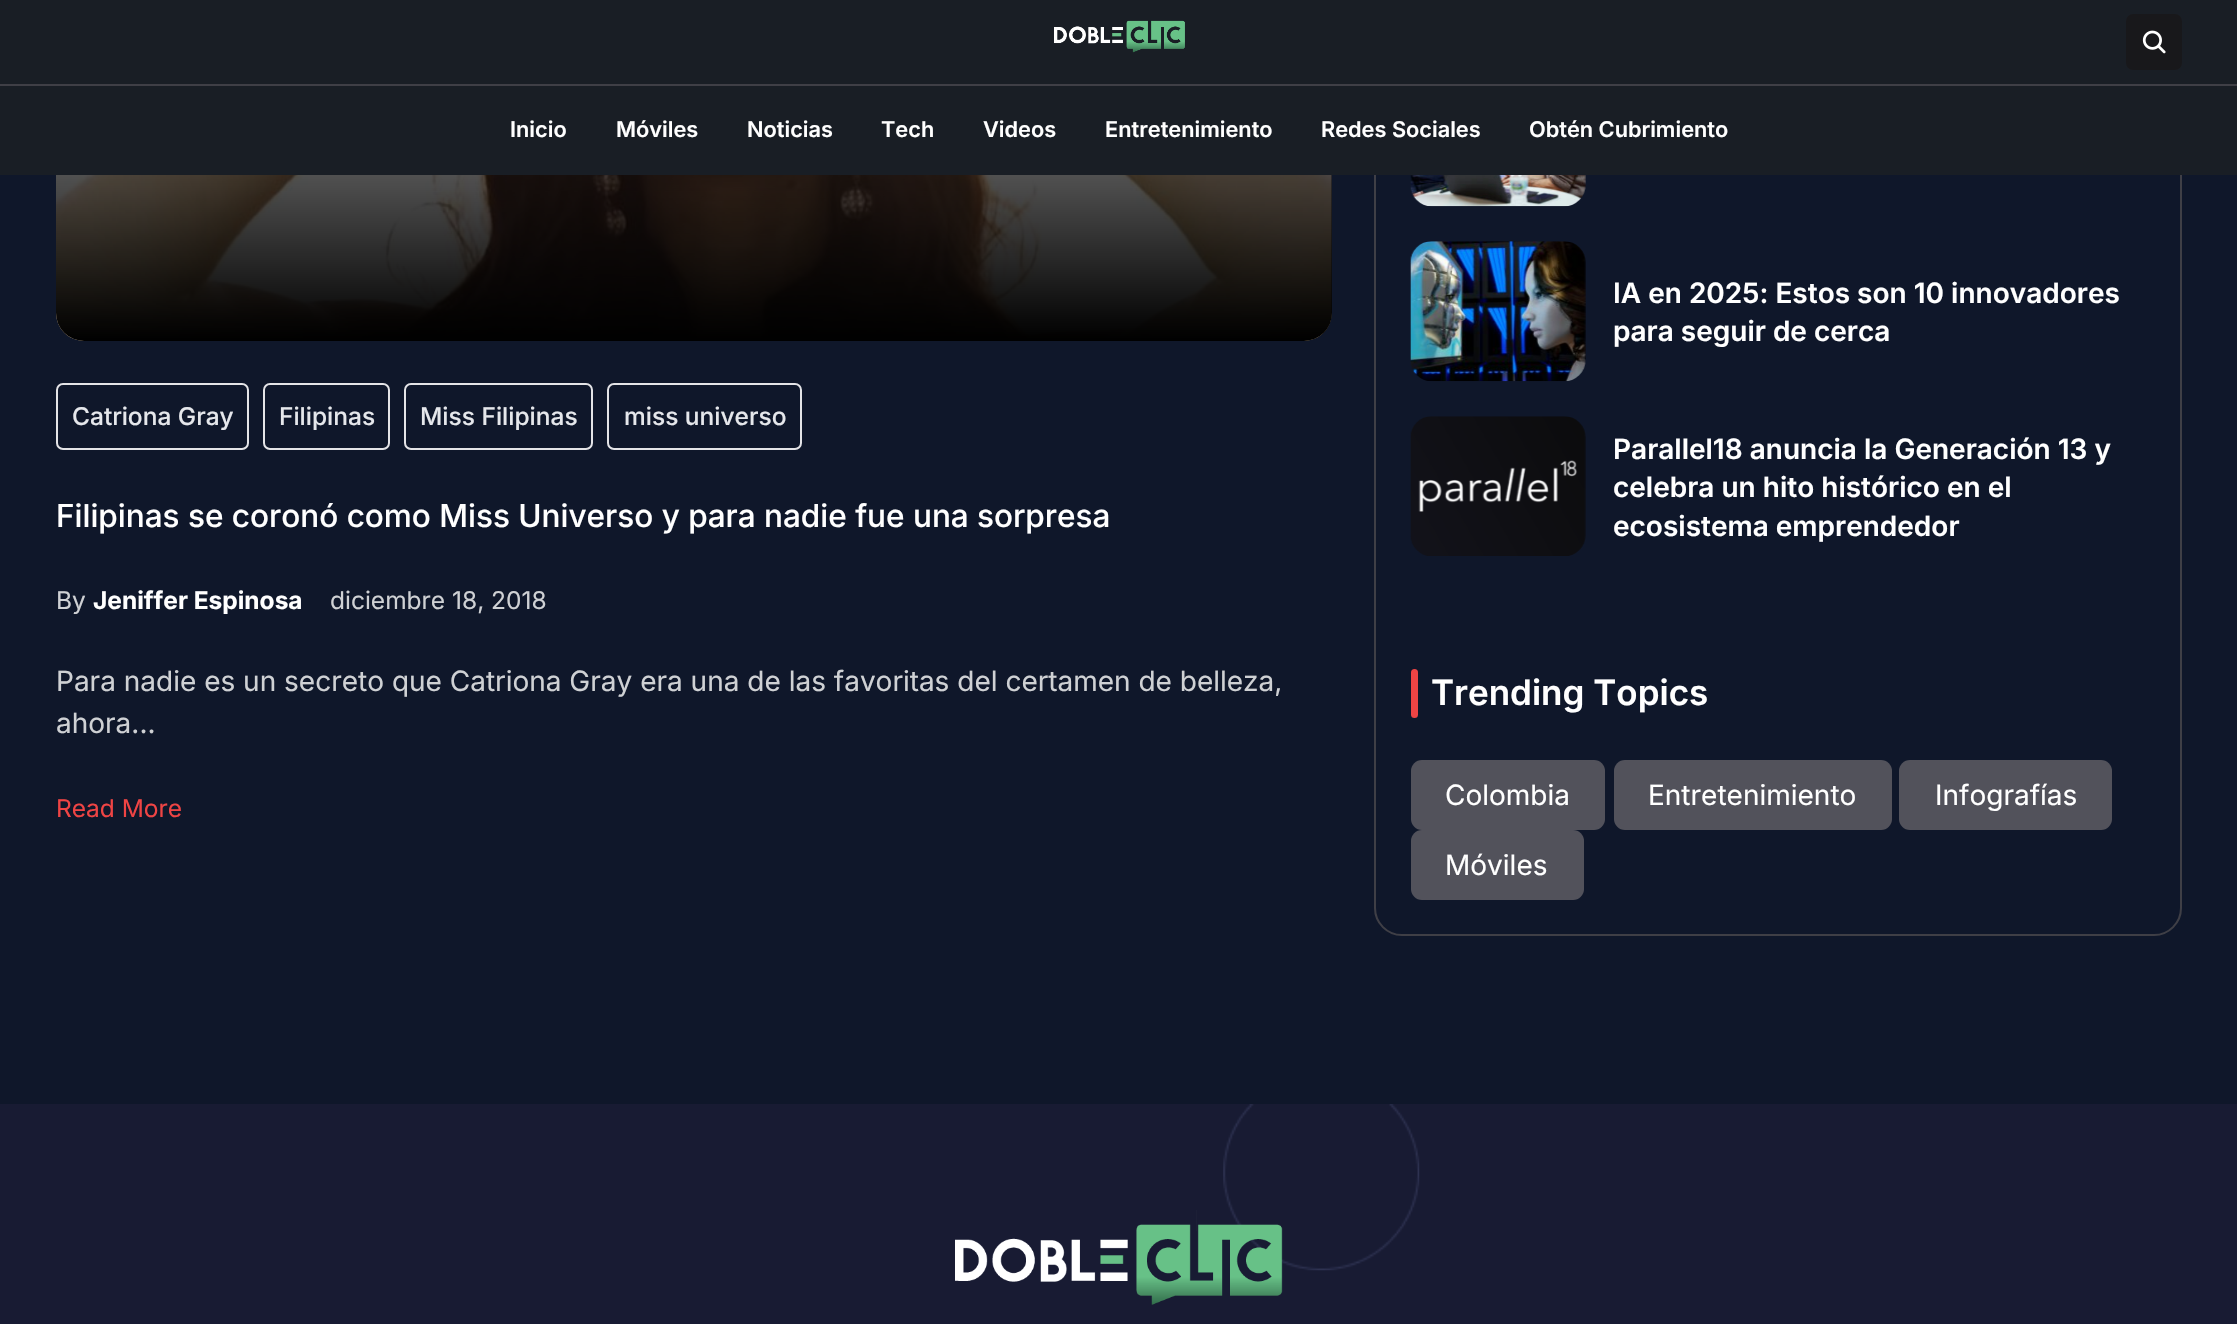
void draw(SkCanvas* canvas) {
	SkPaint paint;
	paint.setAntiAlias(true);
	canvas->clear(0xff0f172a);
	canvas->drawImageRect(SkImages::DeferredFromEncodedData(SkData::MakeFromFileName("img3.png")), SkRect::MakeXYWH(56, 175, 1276, 166), SkSamplingOptions());
	{
		const SkColor colors[] = {0xff000000, 0x00000000};
		const float stops[] = {0, 1};
		const SkPoint ends[] = {{694, 341}, {694, -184}};
		paint.setShader(SkGradientShader::MakeLinear(ends, colors, stops, 2, SkTileMode::kClamp));
		paint.setAlpha(255);
	}
	canvas->drawRoundRect(SkRect::MakeXYWH(56, -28, 1276, 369), 28, 28, paint);
	paint.setStroke(true);
	paint.setStrokeWidth(2);
	paint.setShader(nullptr);
	paint.setColor(0xff3f3f46);
	canvas->drawRoundRect(SkRect::MakeXYWH(1375, -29, 806, 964), 27, 27, paint);
	paint.setStroke(false);
	paint.setColor(0xff191e25);
	canvas->drawRect(SkRect::MakeXYWH(0, 0, 2237, 175), paint);
	paint.setColor(0xff3f3f46);
	canvas->drawRect(SkRect::MakeXYWH(0, 84, 2237, 2), paint);
	canvas->drawImageRect(SkImages::DeferredFromEncodedData(SkData::MakeFromFileName("img1.png")), SkRect::MakeXYWH(1054, 20, 131, 33), SkSamplingOptions());
	paint.setColor(0xff18181b);
	canvas->drawRoundRect(SkRect::MakeXYWH(2126, 14, 56, 56), 7, 7, paint);
	canvas->drawImageRect(SkImages::DeferredFromEncodedData(SkData::MakeFromFileName("img2.png")), SkRect::MakeXYWH(2142, 30, 24, 24), SkSamplingOptions());
	SkFont f1(fontMgr->matchFamilyStyle("Inter", SkFontStyle(600, SkFontStyle::kNormal_Width, SkFontStyle::kUpright_Slant)), 21.75);
	f1.setSubpixel(true);
	paint.setColor(0xffffffff);
	canvas->drawString("Inicio", 510, 137, f1, paint);
	canvas->drawString("Móviles", 616, 137, f1, paint);
	canvas->drawString("Noticias", 747, 137, f1, paint);
	canvas->drawString("Tech", 881, 137, f1, paint);
	canvas->drawString("Videos", 983, 137, f1, paint);
	canvas->drawString("Entretenimiento", 1105, 137, f1, paint);
	canvas->drawString("Redes Sociales", 1321, 137, f1, paint);
	canvas->drawString("Obtén Cubrimiento", 1529, 137, f1, paint);
	paint.setStroke(true);
	paint.setColor(0xffe4e4e7);
	canvas->drawRoundRect(SkRect::MakeXYWH(57, 384, 191, 65), 6, 6, paint);
	SkFont f2(fontMgr->matchFamilyStyle("Inter", SkFontStyle(500, SkFontStyle::kNormal_Width, SkFontStyle::kUpright_Slant)), 24.5);
	f2.setSubpixel(true);
	paint.setStroke(false);
	paint.setColor(0xffe5e7eb);
	canvas->drawString("Catriona Gray", 72, 425, f2, paint);
	paint.setStroke(true);
	paint.setColor(0xffe4e4e7);
	canvas->drawRoundRect(SkRect::MakeXYWH(264, 384, 125, 65), 6, 6, paint);
	paint.setStroke(false);
	paint.setColor(0xffe5e7eb);
	canvas->drawString("Filipinas", 279, 425, f2, paint);
	paint.setStroke(true);
	paint.setColor(0xffe4e4e7);
	canvas->drawRoundRect(SkRect::MakeXYWH(405, 384, 187, 65), 6, 6, paint);
	paint.setStroke(false);
	paint.setColor(0xffe5e7eb);
	canvas->drawString("Miss Filipinas", 420, 425, f2, paint);
	paint.setStroke(true);
	paint.setColor(0xffe4e4e7);
	canvas->drawRoundRect(SkRect::MakeXYWH(608, 384, 193, 65), 6, 6, paint);
	paint.setStroke(false);
	paint.setColor(0xffe5e7eb);
	canvas->drawString("miss universo", 624, 425, f2, paint);
	SkFont f3(fontMgr->matchFamilyStyle("Inter", SkFontStyle(500, SkFontStyle::kNormal_Width, SkFontStyle::kUpright_Slant)), 31.5);
	f3.setSubpixel(true);
	paint.setColor(0xffffffff);
	canvas->drawString("Filipinas se coronó como Miss Universo y para nadie fue una sorpresa", 56, 527, f3, paint);
	SkFont f4(fontMgr->matchFamilyStyle("Inter", SkFontStyle::Normal()), 24.5);
	f4.setSubpixel(true);
	paint.setColor(0xffcfd1d4);
	canvas->drawString("By", 56, 609, f4, paint);
	SkFont f5(fontMgr->matchFamilyStyle("Inter", SkFontStyle::Bold()), 24.5);
	f5.setSubpixel(true);
	paint.setColor(0xffffffff);
	canvas->drawString("Jeniffer Espinosa", 93, 609, f5, paint);
	paint.setColor(0xffcfd1d4);
	canvas->drawString("diciembre 18, 2018", 330, 609, f4, paint);
	SkFont f6(fontMgr->matchFamilyStyle("Inter", SkFontStyle::Normal()), 28);
	f6.setSubpixel(true);
	canvas->drawString("Para nadie es un secreto que Catriona Gray era una de las favoritas del certamen de belleza,", 56, 691, f6, paint);
	canvas->drawString("ahora...", 56, 733, f6, paint);
	paint.setColor(0xffef4444);
	canvas->drawString("Read More", 56, 817, f4, paint);
	canvas->drawImageRect(SkImages::DeferredFromEncodedData(SkData::MakeFromFileName("img4.png")), SkRect::MakeXYWH(1410, 175, 176, 32), SkSamplingOptions());
	canvas->drawImageRect(SkImages::DeferredFromEncodedData(SkData::MakeFromFileName("img5.png")), SkRect::MakeXYWH(1410, 241, 176, 141), SkSamplingOptions());
	SkFont f7(fontMgr->matchFamilyStyle("Inter", SkFontStyle(600, SkFontStyle::kNormal_Width, SkFontStyle::kUpright_Slant)), 28);
	f7.setSubpixel(true);
	paint.setColor(0xffffffff);
	canvas->drawString("IA en 2025: Estos son 10 innovadores", 1613, 303, f7, paint);
	canvas->drawString("para seguir de cerca", 1613, 341, f7, paint);
	canvas->drawImageRect(SkImages::DeferredFromEncodedData(SkData::MakeFromFileName("img6.png")), SkRect::MakeXYWH(1410, 416, 176, 140), SkSamplingOptions());
	canvas->drawString("Parallel18 anuncia la Generación 13 y", 1613, 459, f7, paint);
	canvas->drawString("celebra un hito histórico en el", 1613, 497, f7, paint);
	canvas->drawString("ecosistema emprendedor", 1613, 536, f7, paint);
	paint.setColor(0xffef4444);
	canvas->drawRoundRect(SkRect::MakeXYWH(1411, 669, 7, 49), 3.5, 3.5, paint);
	SkFont f8(fontMgr->matchFamilyStyle("Inter", SkFontStyle(600, SkFontStyle::kNormal_Width, SkFontStyle::kUpright_Slant)), 35);
	f8.setSubpixel(true);
	paint.setColor(0xffffffff);
	canvas->drawString("Trending Topics", 1431, 705, f8, paint);
	paint.setColor(0xff52525b);
	canvas->drawRoundRect(SkRect::MakeXYWH(1411, 760, 194, 70), 11, 11, paint);
	paint.setColor(0xffffffff);
	canvas->drawString("Colombia", 1445, 805, f6, paint);
	paint.setColor(0xff52525b);
	canvas->drawRoundRect(SkRect::MakeXYWH(1614, 760, 278, 70), 11, 11, paint);
	paint.setColor(0xffffffff);
	canvas->drawString("Entretenimiento", 1648, 805, f6, paint);
	paint.setColor(0xff52525b);
	canvas->drawRoundRect(SkRect::MakeXYWH(1899, 760, 213, 70), 11, 11, paint);
	paint.setColor(0xffffffff);
	canvas->drawString("Infografías", 1935, 805, f6, paint);
	paint.setColor(0xff52525b);
	canvas->drawRoundRect(SkRect::MakeXYWH(1411, 830, 173, 70), 11, 11, paint);
	paint.setColor(0xffffffff);
	canvas->drawString("Móviles", 1445, 875, f6, paint);
	paint.setColor(0xff181b33);
	canvas->drawRect(SkRect::MakeXYWH(0, 1104, 2237, 220), paint);
	canvas->drawImageRect(SkImages::DeferredFromEncodedData(SkData::MakeFromFileName("img8.png")), SkRect::MakeXYWH(1196, 1210, 1, 21), SkSamplingOptions());
	canvas->drawImageRect(SkImages::DeferredFromEncodedData(SkData::MakeFromFileName("img9.png")), SkRect::MakeXYWH(1223, 1104, 197, 167), SkSamplingOptions());
	canvas->drawImageRect(SkImages::DeferredFromEncodedData(SkData::MakeFromFileName("img7.png")), SkRect::MakeXYWH(955, 1224, 328, 81), SkSamplingOptions());
}
